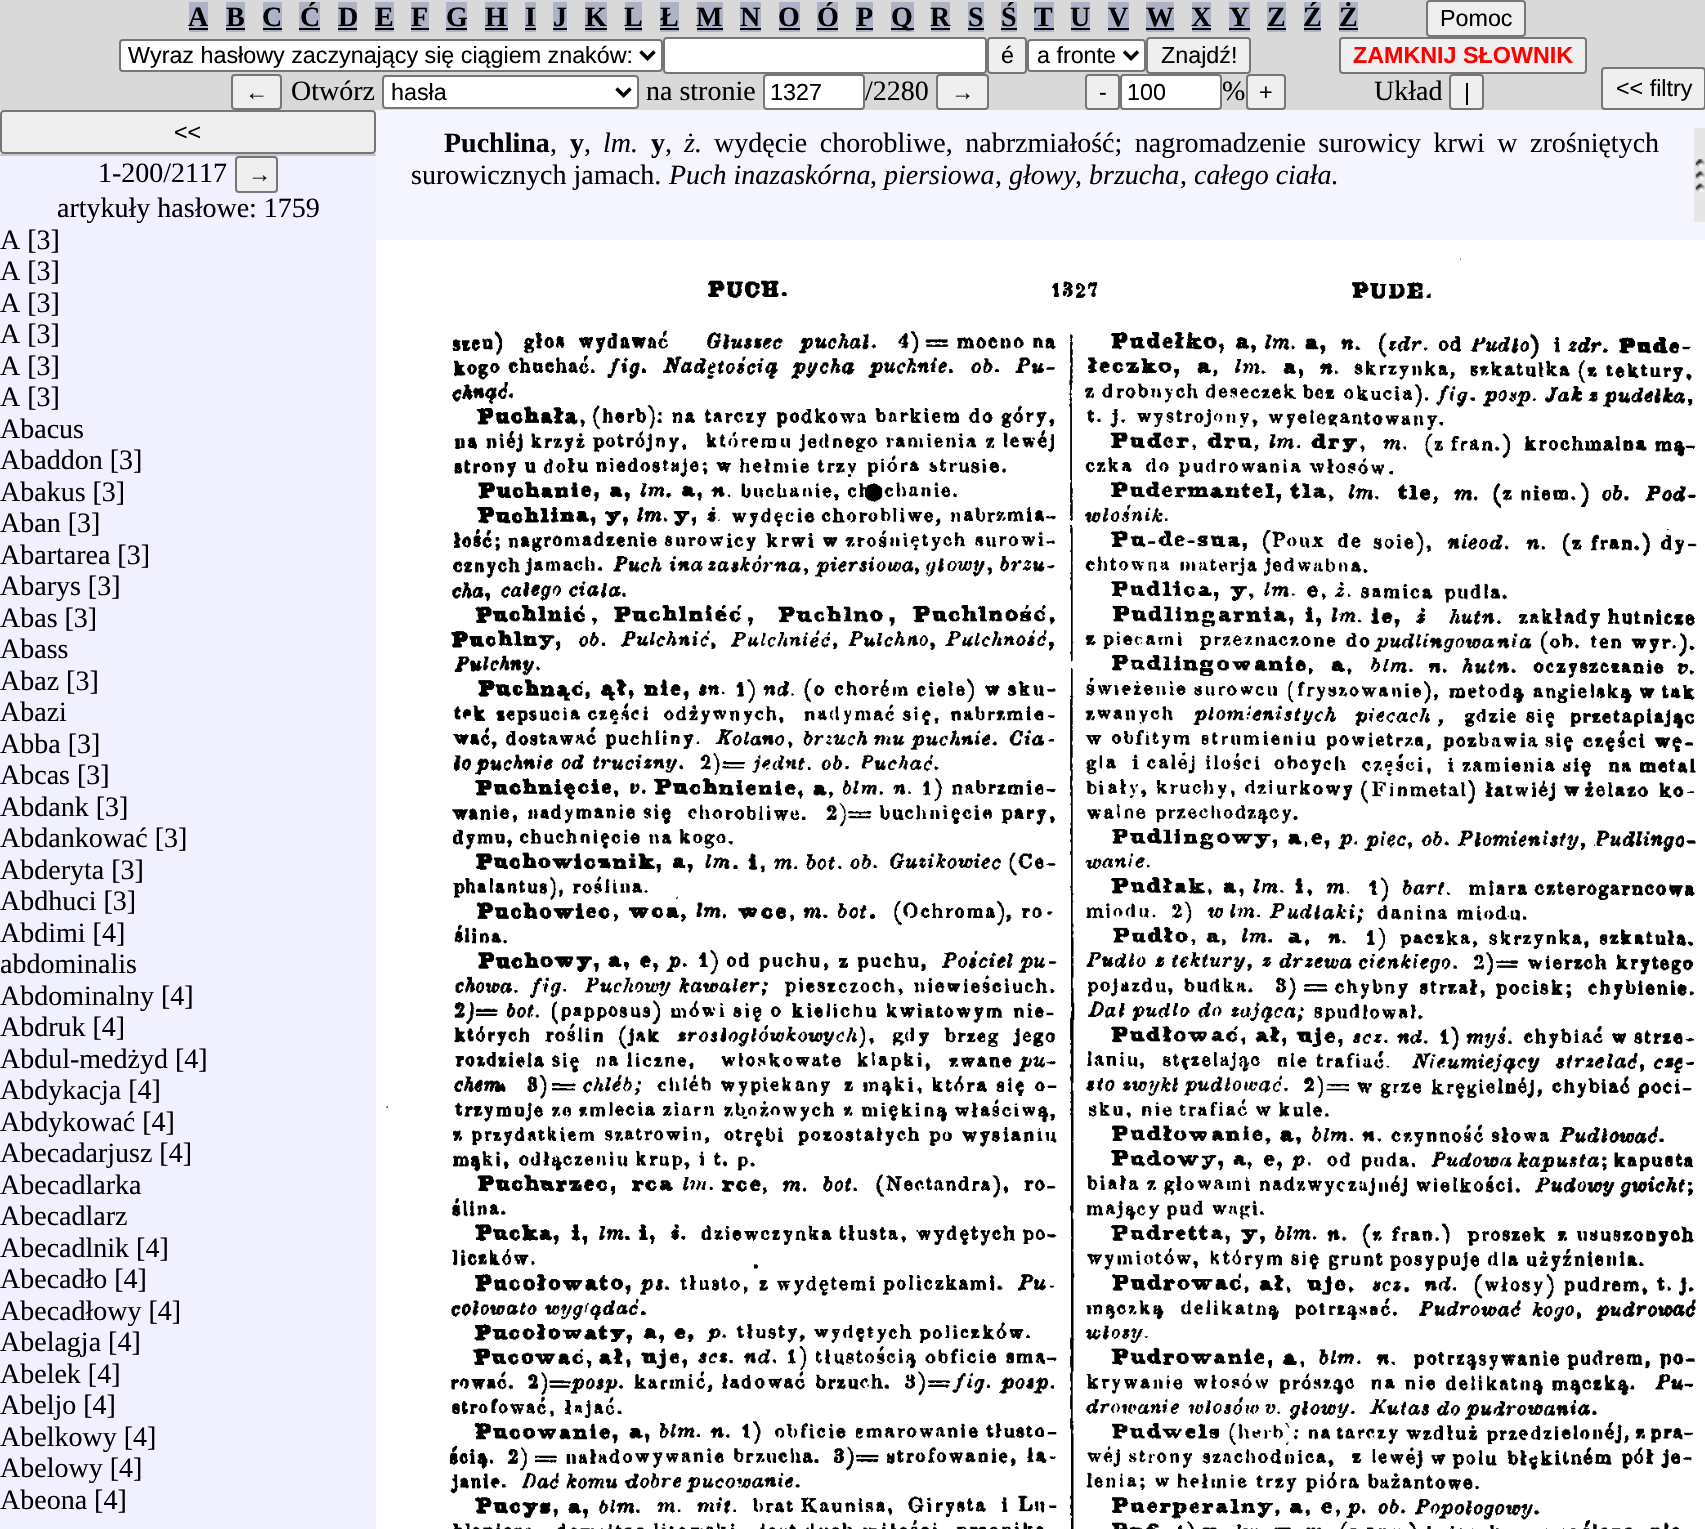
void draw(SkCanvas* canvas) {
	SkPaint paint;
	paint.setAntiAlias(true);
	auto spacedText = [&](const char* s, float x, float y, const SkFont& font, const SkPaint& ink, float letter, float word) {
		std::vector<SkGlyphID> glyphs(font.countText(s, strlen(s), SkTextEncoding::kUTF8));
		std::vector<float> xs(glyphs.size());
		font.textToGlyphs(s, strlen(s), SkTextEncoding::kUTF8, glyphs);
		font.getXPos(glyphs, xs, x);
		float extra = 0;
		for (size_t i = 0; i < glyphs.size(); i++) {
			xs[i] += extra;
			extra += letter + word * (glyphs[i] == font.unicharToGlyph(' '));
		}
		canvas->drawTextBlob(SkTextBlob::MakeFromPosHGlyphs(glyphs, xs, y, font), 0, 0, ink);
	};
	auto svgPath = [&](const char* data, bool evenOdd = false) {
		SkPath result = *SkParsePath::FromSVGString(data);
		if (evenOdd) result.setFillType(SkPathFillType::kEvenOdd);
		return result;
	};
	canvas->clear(0xffffffff);
	paint.setColor(0xffd9d9d9);
	canvas->drawRect(SkRect::MakeXYWH(0, 0, 1705, 110), paint);
	paint.setColor(0xffaeb2c7);
	canvas->drawRect(SkRect::MakeXYWH(189, 2, 19, 30), paint);
	SkFont f1(fontMgr->matchFamilyStyle("Liberation Serif", SkFontStyle::Bold()), 28);
	f1.setSubpixel(true);
	paint.setColor(0xff000000);
	canvas->drawString("A", 188, 26, f1, paint);
	canvas->drawRect(SkRect::MakeXYWH(189, 28, 19, 2), paint);
	paint.setColor(0xffaeb2c7);
	canvas->drawRect(SkRect::MakeXYWH(226, 2, 19, 30), paint);
	paint.setColor(0xff000000);
	canvas->drawString("B", 226, 26, f1, paint);
	canvas->drawRect(SkRect::MakeXYWH(226, 28, 19, 2), paint);
	paint.setColor(0xffaeb2c7);
	canvas->drawRect(SkRect::MakeXYWH(263, 2, 19, 30), paint);
	paint.setColor(0xff000000);
	canvas->drawString("C", 262, 26, f1, paint);
	canvas->drawRect(SkRect::MakeXYWH(263, 28, 19, 2), paint);
	paint.setColor(0xffaeb2c7);
	canvas->drawRect(SkRect::MakeXYWH(299, 2, 21, 30), paint);
	paint.setColor(0xff000000);
	canvas->drawString("Ć", 300, 26, f1, paint);
	canvas->drawRect(SkRect::MakeXYWH(299, 28, 21, 2), paint);
	paint.setColor(0xffaeb2c7);
	canvas->drawRect(SkRect::MakeXYWH(338, 2, 19, 30), paint);
	paint.setColor(0xff000000);
	canvas->drawString("D", 338, 26, f1, paint);
	canvas->drawRect(SkRect::MakeXYWH(338, 28, 19, 2), paint);
	paint.setColor(0xffaeb2c7);
	canvas->drawRect(SkRect::MakeXYWH(375, 2, 19, 30), paint);
	paint.setColor(0xff000000);
	canvas->drawString("E", 375, 26, f1, paint);
	canvas->drawRect(SkRect::MakeXYWH(375, 28, 19, 2), paint);
	paint.setColor(0xffaeb2c7);
	canvas->drawRect(SkRect::MakeXYWH(411, 2, 18, 30), paint);
	paint.setColor(0xff000000);
	canvas->drawString("F", 411, 26, f1, paint);
	canvas->drawRect(SkRect::MakeXYWH(411, 28, 18, 2), paint);
	paint.setColor(0xffaeb2c7);
	canvas->drawRect(SkRect::MakeXYWH(446, 2, 21, 30), paint);
	paint.setColor(0xff000000);
	canvas->drawString("G", 446, 26, f1, paint);
	canvas->drawRect(SkRect::MakeXYWH(446, 28, 21, 2), paint);
	paint.setColor(0xffaeb2c7);
	canvas->drawRect(SkRect::MakeXYWH(485, 2, 23, 30), paint);
	paint.setColor(0xff000000);
	canvas->drawString("H", 485, 26, f1, paint);
	canvas->drawRect(SkRect::MakeXYWH(485, 28, 23, 2), paint);
	paint.setColor(0xffaeb2c7);
	canvas->drawRect(SkRect::MakeXYWH(525, 2, 11, 30), paint);
	paint.setColor(0xff000000);
	canvas->drawString("I", 525, 26, f1, paint);
	canvas->drawRect(SkRect::MakeXYWH(525, 28, 11, 2), paint);
	paint.setColor(0xffaeb2c7);
	canvas->drawRect(SkRect::MakeXYWH(553, 2, 14, 30), paint);
	paint.setColor(0xff000000);
	canvas->drawString("J", 553, 26, f1, paint);
	canvas->drawRect(SkRect::MakeXYWH(553, 28, 14, 2), paint);
	paint.setColor(0xffaeb2c7);
	canvas->drawRect(SkRect::MakeXYWH(585, 2, 22, 30), paint);
	paint.setColor(0xff000000);
	canvas->drawString("K", 585, 26, f1, paint);
	canvas->drawRect(SkRect::MakeXYWH(585, 28, 22, 2), paint);
	paint.setColor(0xffaeb2c7);
	canvas->drawRect(SkRect::MakeXYWH(625, 2, 17, 30), paint);
	paint.setColor(0xff000000);
	canvas->drawString("L", 624, 26, f1, paint);
	canvas->drawRect(SkRect::MakeXYWH(625, 28, 17, 2), paint);
	paint.setColor(0xffaeb2c7);
	canvas->drawRect(SkRect::MakeXYWH(660, 2, 19, 30), paint);
	paint.setColor(0xff000000);
	canvas->drawString("Ł", 660, 26, f1, paint);
	canvas->drawRect(SkRect::MakeXYWH(660, 28, 19, 2), paint);
	paint.setColor(0xffaeb2c7);
	canvas->drawRect(SkRect::MakeXYWH(697, 2, 26, 30), paint);
	paint.setColor(0xff000000);
	canvas->drawString("M", 696, 26, f1, paint);
	canvas->drawRect(SkRect::MakeXYWH(697, 28, 26, 2), paint);
	paint.setColor(0xffaeb2c7);
	canvas->drawRect(SkRect::MakeXYWH(740, 2, 21, 30), paint);
	paint.setColor(0xff000000);
	canvas->drawString("N", 740, 26, f1, paint);
	canvas->drawRect(SkRect::MakeXYWH(740, 28, 21, 2), paint);
	paint.setColor(0xffaeb2c7);
	canvas->drawRect(SkRect::MakeXYWH(779, 2, 21, 30), paint);
	paint.setColor(0xff000000);
	canvas->drawString("O", 778, 26, f1, paint);
	canvas->drawRect(SkRect::MakeXYWH(779, 28, 21, 2), paint);
	paint.setColor(0xffaeb2c7);
	canvas->drawRect(SkRect::MakeXYWH(817, 2, 21, 30), paint);
	paint.setColor(0xff000000);
	canvas->drawString("Ó", 817, 26, f1, paint);
	canvas->drawRect(SkRect::MakeXYWH(817, 28, 21, 2), paint);
	paint.setColor(0xffaeb2c7);
	canvas->drawRect(SkRect::MakeXYWH(856, 2, 17, 30), paint);
	paint.setColor(0xff000000);
	canvas->drawString("P", 856, 26, f1, paint);
	canvas->drawRect(SkRect::MakeXYWH(856, 28, 17, 2), paint);
	paint.setColor(0xffaeb2c7);
	canvas->drawRect(SkRect::MakeXYWH(891, 2, 23, 30), paint);
	paint.setColor(0xff000000);
	canvas->drawRect(SkRect::MakeXYWH(891, 28, 23, 2), paint);
	canvas->drawString("Q", 891, 26, f1, paint);
	paint.setColor(0xffaeb2c7);
	canvas->drawRect(SkRect::MakeXYWH(931, 2, 19, 30), paint);
	paint.setColor(0xff000000);
	canvas->drawString("R", 930, 26, f1, paint);
	canvas->drawRect(SkRect::MakeXYWH(931, 28, 19, 2), paint);
	paint.setColor(0xffaeb2c7);
	canvas->drawRect(SkRect::MakeXYWH(968, 2, 16, 30), paint);
	paint.setColor(0xff000000);
	canvas->drawString("S", 968, 26, f1, paint);
	canvas->drawRect(SkRect::MakeXYWH(968, 28, 16, 2), paint);
	paint.setColor(0xffaeb2c7);
	canvas->drawRect(SkRect::MakeXYWH(1001, 2, 16, 30), paint);
	paint.setColor(0xff000000);
	canvas->drawString("Ś", 1001, 26, f1, paint);
	canvas->drawRect(SkRect::MakeXYWH(1001, 28, 16, 2), paint);
	paint.setColor(0xffaeb2c7);
	canvas->drawRect(SkRect::MakeXYWH(1034, 2, 20, 30), paint);
	paint.setColor(0xff000000);
	canvas->drawString("T", 1034, 26, f1, paint);
	canvas->drawRect(SkRect::MakeXYWH(1034, 28, 20, 2), paint);
	paint.setColor(0xffaeb2c7);
	canvas->drawRect(SkRect::MakeXYWH(1071, 2, 19, 30), paint);
	paint.setColor(0xff000000);
	canvas->drawString("U", 1070, 26, f1, paint);
	canvas->drawRect(SkRect::MakeXYWH(1071, 28, 19, 2), paint);
	paint.setColor(0xffaeb2c7);
	canvas->drawRect(SkRect::MakeXYWH(1108, 2, 21, 30), paint);
	paint.setColor(0xff000000);
	canvas->drawString("V", 1108, 26, f1, paint);
	canvas->drawRect(SkRect::MakeXYWH(1108, 28, 21, 2), paint);
	paint.setColor(0xffaeb2c7);
	canvas->drawRect(SkRect::MakeXYWH(1146, 2, 28, 30), paint);
	paint.setColor(0xff000000);
	canvas->drawString("W", 1146, 26, f1, paint);
	canvas->drawRect(SkRect::MakeXYWH(1146, 28, 28, 2), paint);
	paint.setColor(0xffaeb2c7);
	canvas->drawRect(SkRect::MakeXYWH(1192, 2, 19, 30), paint);
	paint.setColor(0xff000000);
	canvas->drawString("X", 1191, 26, f1, paint);
	canvas->drawRect(SkRect::MakeXYWH(1192, 28, 19, 2), paint);
	paint.setColor(0xffaeb2c7);
	canvas->drawRect(SkRect::MakeXYWH(1229, 2, 21, 30), paint);
	paint.setColor(0xff000000);
	canvas->drawString("Y", 1229, 26, f1, paint);
	canvas->drawRect(SkRect::MakeXYWH(1229, 28, 21, 2), paint);
	paint.setColor(0xffaeb2c7);
	canvas->drawRect(SkRect::MakeXYWH(1267, 2, 19, 30), paint);
	paint.setColor(0xff000000);
	canvas->drawString("Z", 1267, 26, f1, paint);
	canvas->drawRect(SkRect::MakeXYWH(1267, 28, 19, 2), paint);
	paint.setColor(0xffaeb2c7);
	canvas->drawRect(SkRect::MakeXYWH(1304, 2, 17, 30), paint);
	paint.setColor(0xff000000);
	canvas->drawString("Ź", 1303, 26, f1, paint);
	canvas->drawRect(SkRect::MakeXYWH(1304, 28, 17, 2), paint);
	paint.setColor(0xffaeb2c7);
	canvas->drawRect(SkRect::MakeXYWH(1339, 2, 19, 30), paint);
	paint.setColor(0xff000000);
	canvas->drawString("Ż", 1339, 26, f1, paint);
	canvas->drawRect(SkRect::MakeXYWH(1339, 28, 19, 2), paint);
	paint.setColor(0xffefefef);
	canvas->drawRoundRect(SkRect::MakeXYWH(1427, 1, 98, 35), 3, 3, paint);
	paint.setStroke(true);
	paint.setStrokeWidth(2);
	paint.setColor(0xff767676);
	canvas->drawRoundRect(SkRect::MakeXYWH(1427, 1, 98, 35), 3, 3, paint);
	SkFont f2(fontMgr->matchFamilyStyle("Liberation Sans", SkFontStyle::Normal()), 23.3);
	f2.setSubpixel(true);
	paint.setStroke(false);
	paint.setColor(0xff000000);
	canvas->drawString("Pomoc", 1440, 26, f2, paint);
	paint.setColor(0xffffffff);
	canvas->drawRoundRect(SkRect::MakeXYWH(120, 40, 542, 31), 3, 3, paint);
	paint.setStroke(true);
	paint.setColor(0xff767676);
	canvas->drawRoundRect(SkRect::MakeXYWH(120, 40, 542, 31), 3, 3, paint);
	paint.setStrokeWidth(3.5);
	paint.setColor(0xff000000);
	canvas->drawPath(svgPath("M640.5 51.5L647.5 58.5L654.5 51.5"), paint);
	paint.setStroke(false);
	canvas->drawString("Wyraz hasłowy zaczynający się ciągiem znaków:", 128, 63, f2, paint);
	paint.setColor(0xffffffff);
	canvas->drawRoundRect(SkRect::MakeXYWH(664, 38, 322, 35), 3, 3, paint);
	paint.setStroke(true);
	paint.setStrokeWidth(2);
	paint.setColor(0xff767676);
	canvas->drawRoundRect(SkRect::MakeXYWH(664, 38, 322, 35), 3, 3, paint);
	paint.setStroke(false);
	paint.setColor(0xffefefef);
	canvas->drawRoundRect(SkRect::MakeXYWH(988, 38, 38, 35), 3, 3, paint);
	paint.setStroke(true);
	paint.setColor(0xff767676);
	canvas->drawRoundRect(SkRect::MakeXYWH(988, 38, 38, 35), 3, 3, paint);
	paint.setStroke(false);
	paint.setColor(0xff000000);
	canvas->drawString("é", 1001, 63, f2, paint);
	paint.setColor(0xffffffff);
	canvas->drawRoundRect(SkRect::MakeXYWH(1028, 40, 117, 31), 3, 3, paint);
	paint.setStroke(true);
	paint.setColor(0xff767676);
	canvas->drawRoundRect(SkRect::MakeXYWH(1028, 40, 117, 31), 3, 3, paint);
	paint.setStrokeWidth(3.5);
	paint.setColor(0xff000000);
	canvas->drawPath(svgPath("M1124 51.5L1131 58.5L1138 51.5"), paint);
	paint.setStroke(false);
	canvas->drawString("a fronte", 1037, 63, f2, paint);
	paint.setColor(0xffefefef);
	canvas->drawRoundRect(SkRect::MakeXYWH(1147, 38, 103, 35), 3, 3, paint);
	paint.setStroke(true);
	paint.setStrokeWidth(2);
	paint.setColor(0xff767676);
	canvas->drawRoundRect(SkRect::MakeXYWH(1147, 38, 103, 35), 3, 3, paint);
	paint.setStroke(false);
	paint.setColor(0xff000000);
	canvas->drawString("Znajdź!", 1161, 63, f2, paint);
	paint.setColor(0xffefefef);
	canvas->drawRoundRect(SkRect::MakeXYWH(1340, 38, 246, 35), 3, 3, paint);
	paint.setStroke(true);
	paint.setColor(0xff767676);
	canvas->drawRoundRect(SkRect::MakeXYWH(1340, 38, 246, 35), 3, 3, paint);
	SkFont f3(fontMgr->matchFamilyStyle("Liberation Sans", SkFontStyle::Bold()), 23.3);
	f3.setSubpixel(true);
	paint.setStroke(false);
	paint.setColor(0xffff0000);
	canvas->drawString("ZAMKNIJ SŁOWNIK", 1353, 63, f3, paint);
	paint.setColor(0xffefefef);
	canvas->drawRoundRect(SkRect::MakeXYWH(232, 75, 49, 34), 3, 3, paint);
	paint.setStroke(true);
	paint.setColor(0xff767676);
	canvas->drawRoundRect(SkRect::MakeXYWH(232, 75, 49, 34), 3, 3, paint);
	paint.setStroke(false);
	paint.setColor(0xff000000);
	canvas->drawString("←", 245, 100, f2, paint);
	SkFont f4(fontMgr->matchFamilyStyle("Liberation Serif", SkFontStyle::Normal()), 28);
	f4.setSubpixel(true);
	canvas->drawString("Otwórz", 291, 100, f4, paint);
	paint.setColor(0xffffffff);
	canvas->drawRoundRect(SkRect::MakeXYWH(383, 76, 255, 32), 3, 3, paint);
	paint.setStroke(true);
	paint.setColor(0xff767676);
	canvas->drawRoundRect(SkRect::MakeXYWH(383, 76, 255, 32), 3, 3, paint);
	paint.setStrokeWidth(3.5);
	paint.setColor(0xff000000);
	canvas->drawPath(svgPath("M616.5 88.5L623.5 95.5L630.5 88.5"), paint);
	paint.setStroke(false);
	canvas->drawString("hasła", 391, 100, f2, paint);
	canvas->drawString("na stronie", 646, 100, f4, paint);
	paint.setColor(0xffffffff);
	canvas->drawRoundRect(SkRect::MakeXYWH(764, 75, 100, 34), 3, 3, paint);
	paint.setStroke(true);
	paint.setStrokeWidth(2);
	paint.setColor(0xff767676);
	canvas->drawRoundRect(SkRect::MakeXYWH(764, 75, 100, 34), 3, 3, paint);
	paint.setStroke(false);
	paint.setColor(0xff000000);
	canvas->drawString("1327", 770, 100, f2, paint);
	canvas->drawString("/2280", 865, 100, f4, paint);
	paint.setColor(0xffefefef);
	canvas->drawRoundRect(SkRect::MakeXYWH(937, 75, 51, 34), 3, 3, paint);
	paint.setStroke(true);
	paint.setColor(0xff767676);
	canvas->drawRoundRect(SkRect::MakeXYWH(937, 75, 51, 34), 3, 3, paint);
	paint.setStroke(false);
	paint.setColor(0xff000000);
	canvas->drawString("→", 951, 100, f2, paint);
	paint.setColor(0xffefefef);
	canvas->drawRoundRect(SkRect::MakeXYWH(1086, 75, 33, 34), 3, 3, paint);
	paint.setStroke(true);
	paint.setColor(0xff767676);
	canvas->drawRoundRect(SkRect::MakeXYWH(1086, 75, 33, 34), 3, 3, paint);
	paint.setStroke(false);
	paint.setColor(0xff000000);
	canvas->drawString("-", 1099, 100, f2, paint);
	paint.setColor(0xffffffff);
	canvas->drawRoundRect(SkRect::MakeXYWH(1121, 75, 100, 34), 3, 3, paint);
	paint.setStroke(true);
	paint.setColor(0xff767676);
	canvas->drawRoundRect(SkRect::MakeXYWH(1121, 75, 100, 34), 3, 3, paint);
	paint.setStroke(false);
	paint.setColor(0xff000000);
	canvas->drawString("100", 1127, 100, f2, paint);
	canvas->drawString("%", 1222, 100, f4, paint);
	paint.setColor(0xffefefef);
	canvas->drawRoundRect(SkRect::MakeXYWH(1247, 75, 38, 34), 3, 3, paint);
	paint.setStroke(true);
	paint.setColor(0xff767676);
	canvas->drawRoundRect(SkRect::MakeXYWH(1247, 75, 38, 34), 3, 3, paint);
	paint.setStroke(false);
	paint.setColor(0xff000000);
	canvas->drawString("+", 1259, 100, f2, paint);
	canvas->drawString("Układ", 1374, 100, f4, paint);
	paint.setColor(0xffefefef);
	canvas->drawRoundRect(SkRect::MakeXYWH(1450, 75, 33, 34), 3, 3, paint);
	paint.setStroke(true);
	paint.setColor(0xff767676);
	canvas->drawRoundRect(SkRect::MakeXYWH(1450, 75, 33, 34), 3, 3, paint);
	paint.setStroke(false);
	paint.setColor(0xff000000);
	canvas->drawString("|", 1464, 100, f2, paint);
	paint.setColor(0xffefefef);
	canvas->drawRoundRect(SkRect::MakeXYWH(1602, 68, 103, 41), 3, 3, paint);
	paint.setStroke(true);
	paint.setColor(0xff767676);
	canvas->drawRoundRect(SkRect::MakeXYWH(1602, 68, 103, 41), 3, 3, paint);
	paint.setStroke(false);
	paint.setColor(0xff000000);
	canvas->drawString("<< filtry", 1616, 96, f2, paint);
	paint.setColor(0xffefefef);
	canvas->drawRoundRect(SkRect::MakeXYWH(1, 111, 374, 42), 3, 3, paint);
	paint.setStroke(true);
	paint.setColor(0xff767676);
	canvas->drawRoundRect(SkRect::MakeXYWH(1, 111, 374, 42), 3, 3, paint);
	paint.setStroke(false);
	paint.setColor(0xff000000);
	canvas->drawString("<<", 174, 140, f2, paint);
	paint.setColor(0xfff5f5ff);
	canvas->drawRect(SkRect::MakeXYWH(376, 110, 1329, 130), paint);
	paint.setColor(0xff000000);
	canvas->drawString("Puchlina", 444, 152, f1, paint);
	canvas->drawString(",", 550, 152, f4, paint);
	canvas->drawString("y", 570, 152, f1, paint);
	canvas->drawString(",", 584, 152, f4, paint);
	SkFont f5(fontMgr->matchFamilyStyle("Liberation Serif", SkFontStyle::Italic()), 28);
	f5.setSubpixel(true);
	canvas->drawString("lm.", 603, 152, f5, paint);
	canvas->drawString("y", 651, 152, f1, paint);
	canvas->drawString(",", 665, 152, f4, paint);
	canvas->drawString("ż.", 684, 152, f5, paint);
	spacedText("wydęcie chorobliwe, nabrzmiałość; nagromadzenie surowicy krwi w zrośniętych", 714, 152, f4, paint, 0, 5.5);
	paint.setColor(0xffe6e6e6);
	canvas->drawRect(SkRect::MakeXYWH(1694, 128, 11, 94), paint);
	canvas->drawImageRect(SkImages::DeferredFromEncodedData(SkData::MakeFromFileName("img1.png")), SkRect::MakeXYWH(1695, 159, 10, 34), SkSamplingOptions());
	paint.setColor(0xff000000);
	canvas->drawString("surowicznych jamach.", 411, 184, f4, paint);
	canvas->drawString("Puch inazaskórna", 669, 184, f5, paint);
	canvas->drawString(",", 870, 184, f4, paint);
	canvas->drawString("piersiowa", 884, 184, f5, paint);
	canvas->drawString(",", 995, 184, f4, paint);
	canvas->drawString("głowy", 1009, 184, f5, paint);
	canvas->drawString(",", 1075, 184, f4, paint);
	canvas->drawString("brzucha", 1089, 184, f5, paint);
	canvas->drawString(",", 1180, 184, f4, paint);
	canvas->drawString("całego ciała", 1194, 184, f5, paint);
	canvas->drawString(".", 1331, 184, f4, paint);
	canvas->drawImageRect(SkImages::DeferredFromEncodedData(SkData::MakeFromFileName("img2.png")), SkRect::MakeXYWH(386, 258, 1311, 1271), SkSamplingOptions());
	paint.setColor(0xfff0f0ff);
	canvas->drawRect(SkRect::MakeXYWH(0, 156, 376, 1373), paint);
	paint.setColor(0xffc8c8c8);
	canvas->drawRect(SkRect::MakeXYWH(0, 154, 376, 2), paint);
	paint.setColor(0xff000000);
	canvas->drawString("1-200/2117", 98, 182, f4, paint);
	paint.setColor(0xffefefef);
	canvas->drawRoundRect(SkRect::MakeXYWH(236, 157, 41, 35), 3, 3, paint);
	paint.setStroke(true);
	paint.setColor(0xff767676);
	canvas->drawRoundRect(SkRect::MakeXYWH(236, 157, 41, 35), 3, 3, paint);
	paint.setStroke(false);
	paint.setColor(0xff000000);
	canvas->drawString("→", 248, 182, f2, paint);
	canvas->drawString("artykuły hasłowe: 1759", 57, 217, f4, paint);
	canvas->drawString("A [3]", 0, 249, f4, paint);
	canvas->drawString("A [3]", 0, 280, f4, paint);
	canvas->drawString("A [3]", 0, 312, f4, paint);
	canvas->drawString("A [3]", 0, 343, f4, paint);
	canvas->drawString("A [3]", 0, 375, f4, paint);
	canvas->drawString("A [3]", 0, 406, f4, paint);
	canvas->drawString("Abacus", 0, 438, f4, paint);
	canvas->drawString("Abaddon [3]", 0, 469, f4, paint);
	canvas->drawString("Abakus [3]", 0, 501, f4, paint);
	canvas->drawString("Aban [3]", 0, 532, f4, paint);
	canvas->drawString("Abartarea [3]", 0, 564, f4, paint);
	canvas->drawString("Abarys [3]", 0, 595, f4, paint);
	canvas->drawString("Abas [3]", 0, 627, f4, paint);
	canvas->drawString("Abass", 0, 658, f4, paint);
	canvas->drawString("Abaz [3]", 0, 690, f4, paint);
	canvas->drawString("Abazi", 0, 721, f4, paint);
	canvas->drawString("Abba [3]", 0, 753, f4, paint);
	canvas->drawString("Abcas [3]", 0, 784, f4, paint);
	canvas->drawString("Abdank [3]", 0, 816, f4, paint);
	canvas->drawString("Abdankować [3]", 0, 847, f4, paint);
	canvas->drawString("Abderyta [3]", 0, 879, f4, paint);
	canvas->drawString("Abdhuci [3]", 0, 910, f4, paint);
	canvas->drawString("Abdimi [4]", 0, 942, f4, paint);
	canvas->drawString("abdominalis", 0, 973, f4, paint);
	canvas->drawString("Abdominalny [4]", 0, 1005, f4, paint);
	canvas->drawString("Abdruk [4]", 0, 1036, f4, paint);
	canvas->drawString("Abdul-medżyd [4]", 0, 1068, f4, paint);
	canvas->drawString("Abdykacja [4]", 0, 1099, f4, paint);
	canvas->drawString("Abdykować [4]", 0, 1131, f4, paint);
	canvas->drawString("Abecadarjusz [4]", 0, 1162, f4, paint);
	canvas->drawString("Abecadlarka", 0, 1194, f4, paint);
	canvas->drawString("Abecadlarz", 0, 1225, f4, paint);
	canvas->drawString("Abecadlnik [4]", 0, 1257, f4, paint);
	canvas->drawString("Abecadło [4]", 0, 1288, f4, paint);
	canvas->drawString("Abecadłowy [4]", 0, 1320, f4, paint);
	canvas->drawString("Abelagja [4]", 0, 1351, f4, paint);
	canvas->drawString("Abelek [4]", 0, 1383, f4, paint);
	canvas->drawString("Abeljo [4]", 0, 1414, f4, paint);
	canvas->drawString("Abelkowy [4]", 0, 1446, f4, paint);
	canvas->drawString("Abelowy [4]", 0, 1477, f4, paint);
	canvas->drawString("Abeona [4]", 0, 1509, f4, paint);
}
